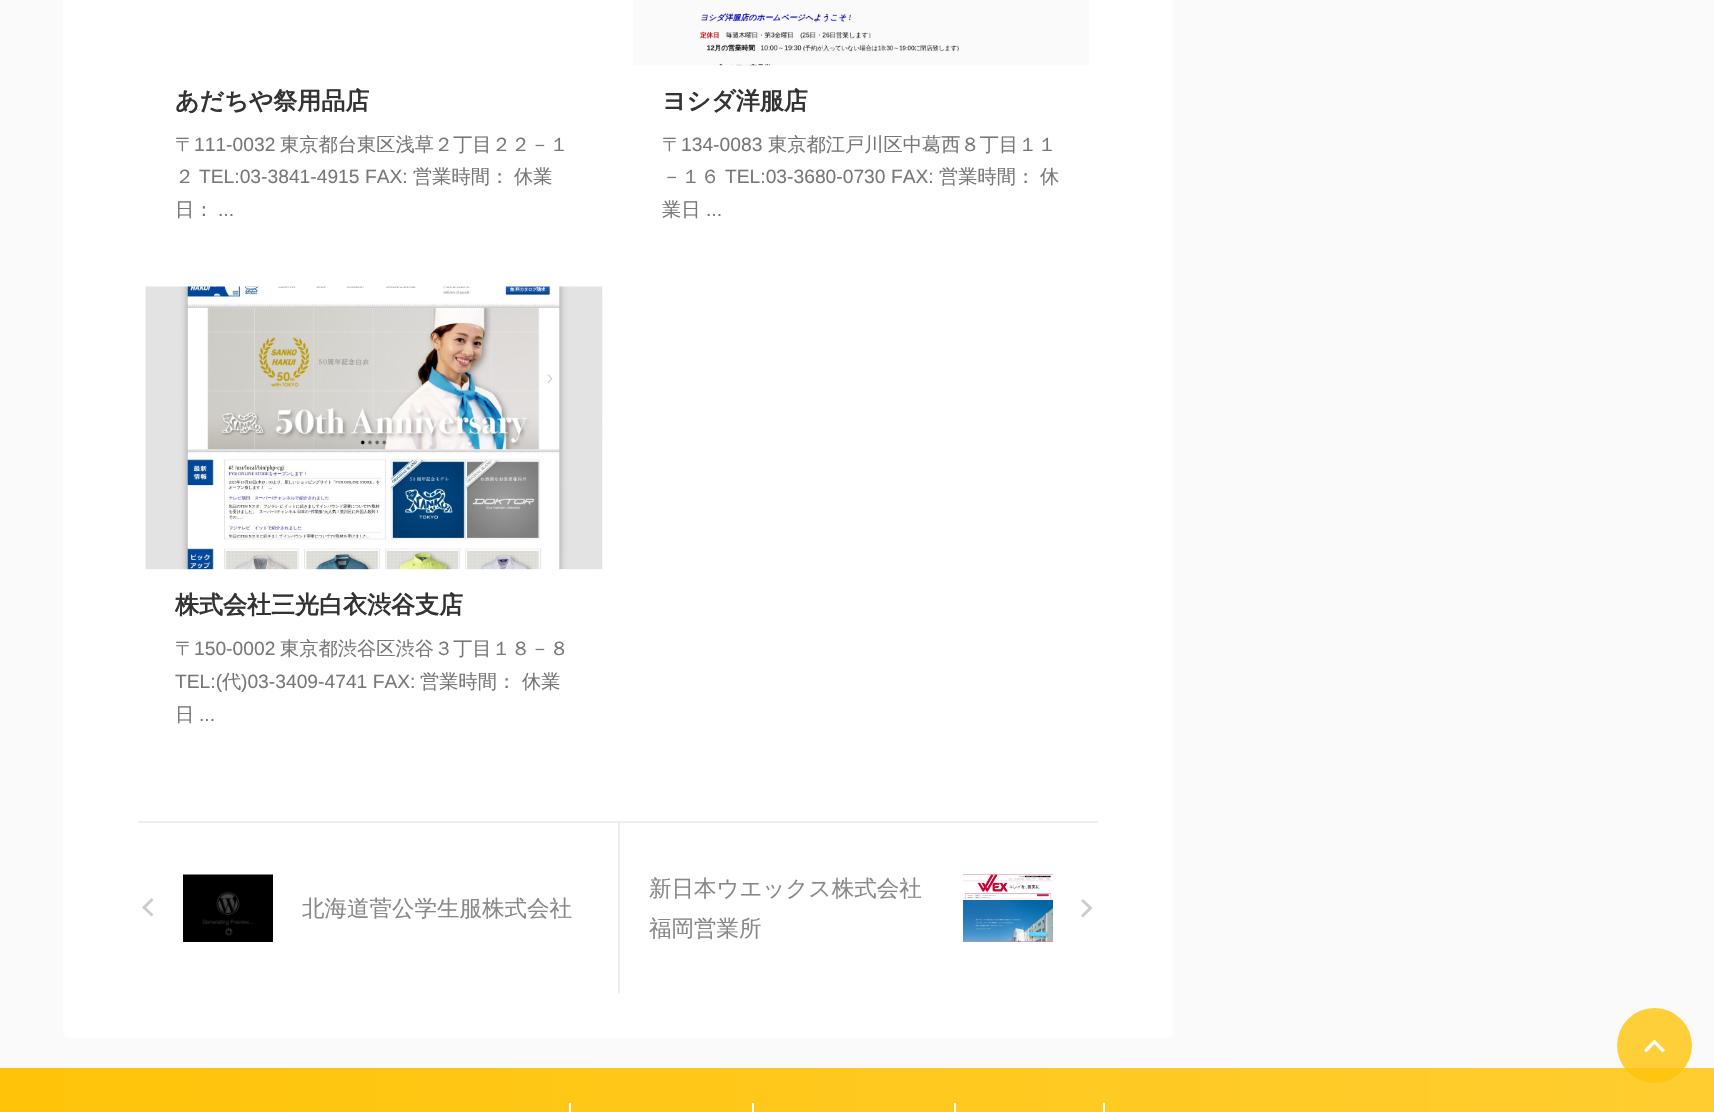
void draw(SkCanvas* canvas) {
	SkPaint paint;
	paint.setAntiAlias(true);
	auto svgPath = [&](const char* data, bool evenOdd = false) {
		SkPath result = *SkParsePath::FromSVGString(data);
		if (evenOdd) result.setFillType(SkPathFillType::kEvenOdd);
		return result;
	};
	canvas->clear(0xfffafafa);
	paint.setColor(0xffffffff);
	canvas->drawRoundRect(SkRect::MakeXYWH(63, -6, 1110, 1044), 6, 6, paint);
	SkFont f1(fontMgr->matchFamilyStyle("WenQuanYi Zen Hei", SkFontStyle::Bold()), 24);
	f1.setSubpixel(true);
	paint.setColor(0xff333333);
	canvas->drawString("あだちや祭用品店", 175, 109, f1, paint);
	SkFont f2(fontMgr->matchFamilyStyle("WenQuanYi Zen Hei", SkFontStyle(500, SkFontStyle::kNormal_Width, SkFontStyle::kUpright_Slant)), 19.25);
	f2.setSubpixel(true);
	paint.setColor(0xff777777);
	canvas->drawString("〒", 175, 151, f2, paint);
	SkFont f3(fontMgr->matchFamilyStyle("Liberation Sans", SkFontStyle::Normal()), 19.25);
	f3.setSubpixel(true);
	canvas->drawString("111-0032", 194, 151, f3, paint);
	canvas->drawString("東京都台東区浅草２丁目２２－１", 280, 151, f2, paint);
	canvas->drawString("２", 175, 183, f2, paint);
	canvas->drawString("TEL:03-3841-4915 FAX:", 199, 183, f3, paint);
	canvas->drawString("営業時間：", 413, 183, f2, paint);
	canvas->drawString("休業", 514, 183, f2, paint);
	canvas->drawString("日：", 175, 216, f2, paint);
	canvas->drawString("...", 218, 216, f3, paint);
	canvas->drawImageRect(SkImages::DeferredFromEncodedData(SkData::MakeFromFileName("img1.png")), SkRect::MakeXYWH(633, 0, 456, 66), SkSamplingOptions());
	paint.setColor(0xff333333);
	canvas->drawString("ヨシダ洋服店", 662, 109, f1, paint);
	paint.setColor(0xff777777);
	canvas->drawString("〒", 662, 151, f2, paint);
	canvas->drawString("134-0083", 681, 151, f3, paint);
	canvas->drawString("東京都江戸川区中葛西８丁目１１", 768, 151, f2, paint);
	canvas->drawString("－１６", 662, 183, f2, paint);
	canvas->drawString("TEL:03-3680-0730 FAX:", 725, 183, f3, paint);
	canvas->drawString("営業時間：", 939, 183, f2, paint);
	canvas->drawString("休", 1040, 183, f2, paint);
	canvas->drawString("業日", 662, 216, f2, paint);
	canvas->drawString("...", 706, 216, f3, paint);
	canvas->drawImageRect(SkImages::DeferredFromEncodedData(SkData::MakeFromFileName("img2.png")), SkRect::MakeXYWH(145, 286, 458, 284), SkSamplingOptions());
	paint.setColor(0xff333333);
	canvas->drawString("株式会社三光白衣渋谷支店", 175, 613, f1, paint);
	paint.setColor(0xff777777);
	canvas->drawString("〒", 175, 655, f2, paint);
	canvas->drawString("150-0002", 194, 655, f3, paint);
	canvas->drawString("東京都渋谷区渋谷３丁目１８－８", 280, 655, f2, paint);
	canvas->drawString("TEL:(", 175, 688, f3, paint);
	canvas->drawString("代", 222, 688, f2, paint);
	canvas->drawString(")03-3409-4741 FAX:", 241, 688, f3, paint);
	canvas->drawString("営業時間：", 420, 688, f2, paint);
	canvas->drawString("休業", 522, 688, f2, paint);
	canvas->drawString("日", 175, 721, f2, paint);
	canvas->drawString("...", 199, 721, f3, paint);
	paint.setColor(0xffeeeeee);
	canvas->drawRect(SkRect::MakeXYWH(138, 821, 960, 2), paint);
	paint.setColor(0xffcccccc);
	canvas->drawPath(svgPath("M146 907.5L153.5 914.5L151.5 916.5L142 907.5L151.5 898L153.5 900Z"), paint);
	canvas->drawImageRect(SkImages::DeferredFromEncodedData(SkData::MakeFromFileName("img3.png")), SkRect::MakeXYWH(183, 874, 90, 68), SkSamplingOptions());
	SkFont f4(fontMgr->matchFamilyStyle("WenQuanYi Zen Hei", SkFontStyle(500, SkFontStyle::kNormal_Width, SkFontStyle::kUpright_Slant)), 22.5);
	f4.setSubpixel(true);
	paint.setColor(0xff888888);
	canvas->drawString("北海道菅公学生服株式会社", 302, 916, f4, paint);
	paint.setColor(0xffeeeeee);
	canvas->drawRect(SkRect::MakeXYWH(618, 822, 2, 171), paint);
	paint.setColor(0xff888888);
	canvas->drawString("新日本ウエックス株式会社", 649, 896, f4, paint);
	canvas->drawString("福岡営業所", 649, 936, f4, paint);
	canvas->drawImageRect(SkImages::DeferredFromEncodedData(SkData::MakeFromFileName("img4.png")), SkRect::MakeXYWH(963, 874, 90, 68), SkSamplingOptions());
	paint.setColor(0xffcccccc);
	canvas->drawPath(svgPath("M1088.5 908L1081 901L1083 899L1092.5 908L1083 917.5L1081 915.5Z"), paint);
	{
		const SkColor colors[] = {0xffffcd30, 0xffffc409};
		const float stops[] = {0, 1};
		const SkPoint ends[] = {{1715, 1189}, {0, 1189}};
		paint.setShader(SkGradientShader::MakeLinear(ends, colors, stops, 2, SkTileMode::kClamp));
		paint.setAlpha(255);
	}
	canvas->drawRect(SkRect::MakeXYWH(0, 1068, 1714, 44), paint);
	paint.setShader(nullptr);
	paint.setColor(0xffffffff);
	canvas->drawRect(SkRect::MakeXYWH(569, 1103, 2, 9), paint);
	canvas->drawRect(SkRect::MakeXYWH(752, 1103, 2, 9), paint);
	canvas->drawRect(SkRect::MakeXYWH(954, 1103, 2, 9), paint);
	canvas->drawRect(SkRect::MakeXYWH(1103, 1103, 2, 9), paint);
	paint.setColor(0xccffc409);
	canvas->drawCircle(1654.5, 1045.5, 37.5, paint);
	paint.setColor(0xfffefefe);
	canvas->drawPath(svgPath("M1654.5 1044L1646.5 1052.5L1644 1050L1654.5 1039.5L1665 1050L1662.5 1052.5Z"), paint);
}
